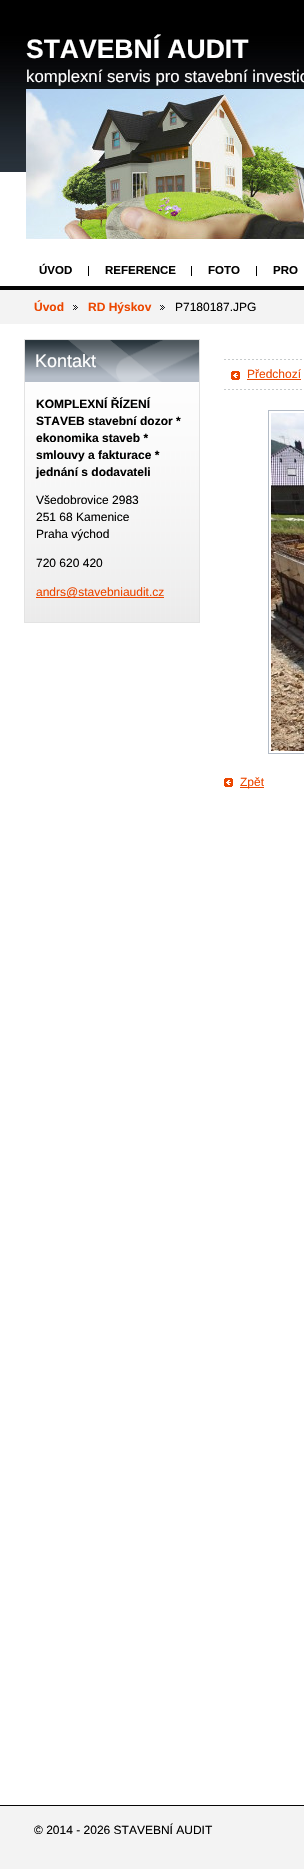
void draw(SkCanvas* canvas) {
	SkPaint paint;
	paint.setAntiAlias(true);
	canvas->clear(0xffffffff);
	paint.setColor(0xff000000);
	canvas->drawRect(SkRect::MakeXYWH(0, 0, 304, 34), paint);
	canvas->drawImageRect(SkImages::DeferredFromEncodedData(SkData::MakeFromFileName("img1.png")), SkRect::MakeXYWH(0, 34, 304, 138), SkSamplingOptions());
	SkFont f1(fontMgr->matchFamilyStyle("Liberation Sans", SkFontStyle::Bold()), 26.5);
	f1.setSubpixel(true);
	paint.setColor(0xffffffff);
	canvas->drawString("STAVEBNÍ AUDIT", 26, 58, f1, paint);
	SkFont f2(fontMgr->matchFamilyStyle("Liberation Sans", SkFontStyle::Normal()), 16.75);
	f2.setSubpixel(true);
	canvas->drawString("komplexní servis pro stavební investic", 26, 82, f2, paint);
	canvas->drawImageRect(SkImages::DeferredFromEncodedData(SkData::MakeFromFileName("img2.png")), SkRect::MakeXYWH(26, 89, 278, 150), SkSamplingOptions());
	SkFont f3(fontMgr->matchFamilyStyle("Liberation Sans", SkFontStyle::Bold()), 11.5);
	f3.setSubpixel(true);
	paint.setColor(0xff000000);
	canvas->drawString("ÚVOD", 39, 274, f3, paint);
	canvas->drawRect(SkRect::MakeXYWH(88, 266, 1, 10), paint);
	canvas->drawString("REFERENCE", 105, 274, f3, paint);
	canvas->drawRect(SkRect::MakeXYWH(191, 266, 1, 10), paint);
	canvas->drawString("FOTO", 208, 274, f3, paint);
	canvas->drawRect(SkRect::MakeXYWH(256, 266, 1, 10), paint);
	canvas->drawString("PRO", 273, 274, f3, paint);
	paint.setColor(0xfff3f3f3);
	canvas->drawRect(SkRect::MakeXYWH(0, 290, 304, 34), paint);
	paint.setColor(0xff050505);
	canvas->drawRect(SkRect::MakeXYWH(0, 286, 304, 4), paint);
	SkFont f4(fontMgr->matchFamilyStyle("Liberation Sans", SkFontStyle::Bold()), 12);
	f4.setSubpixel(true);
	paint.setColor(0xffec4700);
	canvas->drawString("Úvod", 34, 311, f4, paint);
	canvas->drawImageRect(SkImages::DeferredFromEncodedData(SkData::MakeFromFileName("img3.png")), SkRect::MakeXYWH(73, 305, 5, 5), SkSamplingOptions());
	canvas->drawString("RD Hýskov", 88, 311, f4, paint);
	canvas->drawImageRect(SkImages::DeferredFromEncodedData(SkData::MakeFromFileName("img3.png")), SkRect::MakeXYWH(160, 305, 5, 5), SkSamplingOptions());
	SkFont f5(fontMgr->matchFamilyStyle("Liberation Sans", SkFontStyle::Normal()), 12);
	f5.setSubpixel(true);
	paint.setColor(0xff000000);
	canvas->drawString("P7180187.JPG", 175, 311, f5, paint);
	canvas->drawImageRect(SkImages::DeferredFromEncodedData(SkData::MakeFromFileName("img4.png")), SkRect::MakeXYWH(25, 382, 174, 240), SkSamplingOptions());
	paint.setStroke(true);
	paint.setStrokeWidth(1);
	paint.setColor(0xffe3e3e3);
	canvas->drawRect(SkRect::MakeXYWH(24.5, 339.5, 175, 283), paint);
	canvas->drawImageRect(SkImages::DeferredFromEncodedData(SkData::MakeFromFileName("img5.png")), SkRect::MakeXYWH(25, 340, 174, 42), SkSamplingOptions());
	SkFont f6(fontMgr->matchFamilyStyle("Liberation Sans", SkFontStyle::Normal()), 18);
	f6.setSubpixel(true);
	paint.setStroke(false);
	paint.setColor(0xffffffff);
	canvas->drawString("Kontakt", 35, 367, f6, paint);
	paint.setColor(0xff000000);
	canvas->drawString("KOMPLEXNÍ ŘÍZENÍ", 36, 408, f4, paint);
	canvas->drawString("STAVEB stavební dozor *", 36, 425, f4, paint);
	canvas->drawString("ekonomika staveb *", 36, 442, f4, paint);
	canvas->drawString("smlouvy a fakturace *", 36, 459, f4, paint);
	canvas->drawString("jednání s dodavateli", 36, 476, f4, paint);
	canvas->drawString("Všedobrovice 2983", 36, 504, f5, paint);
	canvas->drawString("251 68 Kamenice", 36, 521, f5, paint);
	canvas->drawString("Praha východ", 36, 538, f5, paint);
	canvas->drawString("720 620 420", 36, 567, f5, paint);
	paint.setColor(0xffec4700);
	canvas->drawRect(SkRect::MakeXYWH(36, 597, 128, 1), paint);
	canvas->drawString("andrs@stavebniaudit.cz", 36, 596, f5, paint);
	canvas->drawImageRect(SkImages::DeferredFromEncodedData(SkData::MakeFromFileName("img6.png")), SkRect::MakeXYWH(224, 359, 78, 1), SkSamplingOptions());
	canvas->drawImageRect(SkImages::DeferredFromEncodedData(SkData::MakeFromFileName("img6.png")), SkRect::MakeXYWH(224, 389, 78, 1), SkSamplingOptions());
	canvas->drawImageRect(SkImages::DeferredFromEncodedData(SkData::MakeFromFileName("img7.png")), SkRect::MakeXYWH(231, 371, 9, 9), SkSamplingOptions());
	canvas->drawString("Předchozí", 247, 378, f5, paint);
	canvas->drawRect(SkRect::MakeXYWH(247, 379, 54, 1), paint);
	paint.setStroke(true);
	paint.setColor(0xffb4bcc7);
	canvas->drawRect(SkRect::MakeXYWH(268.5, 410.5, 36, 343), paint);
	canvas->drawImageRect(SkImages::DeferredFromEncodedData(SkData::MakeFromFileName("img8.png")), SkRect::MakeXYWH(271, 413, 33, 338), SkSamplingOptions());
	canvas->drawImageRect(SkImages::DeferredFromEncodedData(SkData::MakeFromFileName("img7.png")), SkRect::MakeXYWH(224, 778, 9, 9), SkSamplingOptions());
	paint.setStroke(false);
	paint.setColor(0xffec4700);
	canvas->drawRect(SkRect::MakeXYWH(240, 787, 24, 1), paint);
	canvas->drawString("Zpět", 240, 786, f5, paint);
	paint.setColor(0xfff3f3f3);
	canvas->drawRect(SkRect::MakeXYWH(0, 1806, 304, 63), paint);
	paint.setColor(0xff050505);
	canvas->drawRect(SkRect::MakeXYWH(0, 1805, 304, 1), paint);
	paint.setColor(0xff000000);
	canvas->drawString("© 2014 - 2026 STAVEBNÍ AUDIT", 34, 1834, f5, paint);
}
